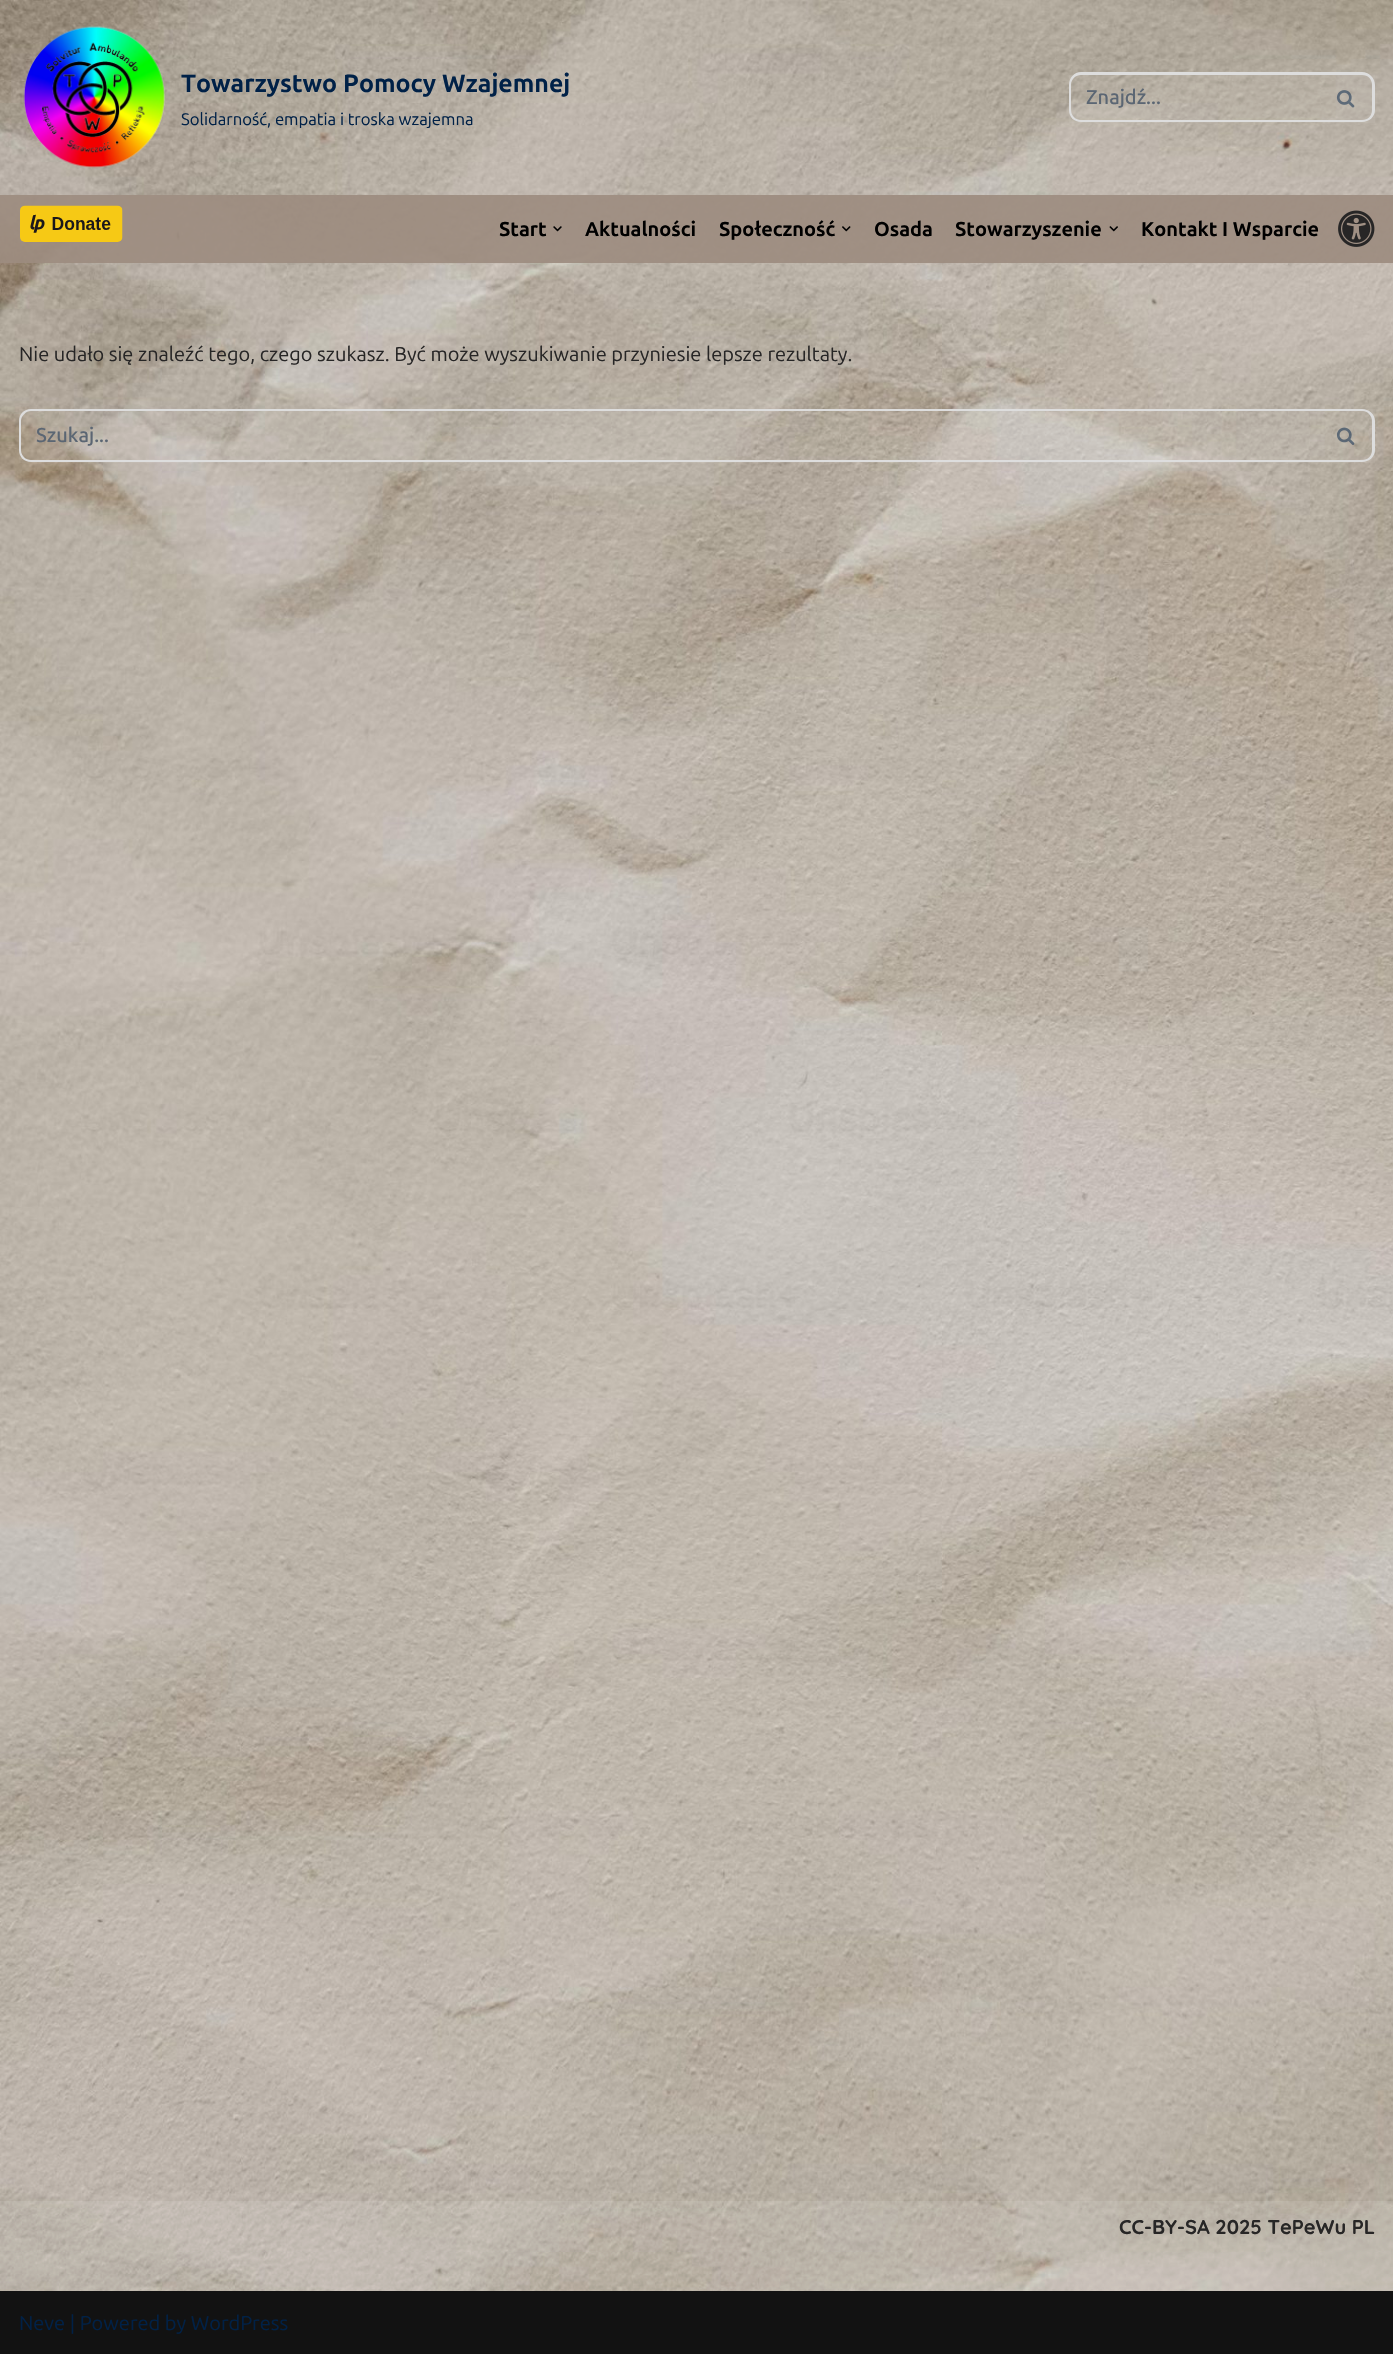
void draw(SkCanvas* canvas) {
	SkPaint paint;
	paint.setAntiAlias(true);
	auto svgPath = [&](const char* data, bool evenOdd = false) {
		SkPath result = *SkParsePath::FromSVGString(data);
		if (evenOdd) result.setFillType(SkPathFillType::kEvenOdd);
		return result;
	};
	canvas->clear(0xffffffff);
	canvas->drawImageRect(SkImages::DeferredFromEncodedData(SkData::MakeFromFileName("img1.png")), SkRect::MakeXYWH(0, 195, 1393, 2096), SkSamplingOptions());
	canvas->drawImageRect(SkImages::DeferredFromEncodedData(SkData::MakeFromFileName("img2.png")), SkRect::MakeXYWH(0, 0, 1393, 195), SkSamplingOptions());
	canvas->drawImageRect(SkImages::DeferredFromEncodedData(SkData::MakeFromFileName("img3.png")), SkRect::MakeXYWH(21, 26, 144, 147), SkSamplingOptions());
	SkFont f1(fontMgr->matchFamilyStyle("Ubuntu Sans", SkFontStyle::Bold()), 25);
	f1.setSubpixel(true);
	paint.setColor(0xff002147);
	canvas->drawString("Towarzystwo Pomocy Wzajemnej", 181, 92, f1, paint);
	SkFont f2(fontMgr->matchFamilyStyle("Ubuntu Sans", SkFontStyle::Normal()), 16.7);
	f2.setSubpixel(true);
	canvas->drawString("Solidarność, empatia i troska wzajemna", 181, 125, f2, paint);
	paint.setColor(0x0dffffff);
	canvas->drawRect(SkRect::MakeXYWH(1069, 75, 250, 48), paint);
	paint.setColor(0xffdddddd);
	canvas->drawPath(svgPath("M1081 72H1319V122H1081C1074 122 1069 117 1069 110V85C1069 78 1074 72 1081 72ZM1081 75H1319V120H1081C1076 120 1071 116 1071 110V85C1071 79 1076 75 1081 75Z", true), paint);
	SkFont f3(fontMgr->matchFamilyStyle("Ubuntu Sans", SkFontStyle(500, SkFontStyle::kNormal_Width, SkFontStyle::kUpright_Slant)), 20);
	f3.setSubpixel(true);
	paint.setColor(0xff5b6673);
	canvas->drawString("Znajdź...", 1086, 104, f3, paint);
	paint.setColor(0x0dffffff);
	canvas->drawRect(SkRect::MakeXYWH(1319, 75, 56, 48), paint);
	paint.setColor(0xffdddddd);
	canvas->drawPath(svgPath("M1319 72H1362C1369 72 1375 78 1375 85V110C1375 117 1369 122 1362 122H1319ZM1319 75H1362C1368 75 1372 79 1372 85V110C1372 116 1368 120 1362 120H1319Z", true), paint);
	canvas->drawImageRect(SkImages::DeferredFromEncodedData(SkData::MakeFromFileName("img4.png")), SkRect::MakeXYWH(1336, 90, 19, 18), SkSamplingOptions());
	paint.setColor(0xb59c8c7f);
	canvas->drawRect(SkRect::MakeXYWH(0, 195, 1393, 68), paint);
	canvas->drawRect(SkRect::MakeXYWH(0, 195, 1393, 68), paint);
	canvas->drawImageRect(SkImages::DeferredFromEncodedData(SkData::MakeFromFileName("img5.png")), SkRect::MakeXYWH(20, 205, 103, 37), SkSamplingOptions());
	SkFont f4(fontMgr->matchFamilyStyle("Ubuntu Sans", SkFontStyle::Bold()), 20);
	f4.setSubpixel(true);
	paint.setColor(0xff000000);
	canvas->drawString("Start", 499, 236, f4, paint);
	canvas->drawImageRect(SkImages::DeferredFromEncodedData(SkData::MakeFromFileName("img6.png")), SkRect::MakeXYWH(553, 226, 9, 6), SkSamplingOptions());
	canvas->drawString("Aktualności", 585, 236, f4, paint);
	canvas->drawString("Społeczność", 719, 236, f4, paint);
	canvas->drawImageRect(SkImages::DeferredFromEncodedData(SkData::MakeFromFileName("img7.png")), SkRect::MakeXYWH(842, 226, 9, 6), SkSamplingOptions());
	canvas->drawString("Osada", 874, 236, f4, paint);
	canvas->drawString("Stowarzyszenie", 955, 236, f4, paint);
	canvas->drawImageRect(SkImages::DeferredFromEncodedData(SkData::MakeFromFileName("img8.png")), SkRect::MakeXYWH(1109, 226, 9, 6), SkSamplingOptions());
	canvas->drawString("Kontakt I Wsparcie", 1141, 236, f4, paint);
	canvas->drawImageRect(SkImages::DeferredFromEncodedData(SkData::MakeFromFileName("img9.png")), SkRect::MakeXYWH(1338, 210, 37, 37), SkSamplingOptions());
	SkFont f5(fontMgr->matchFamilyStyle("Ubuntu Sans", SkFontStyle::Normal()), 20);
	f5.setSubpixel(true);
	paint.setColor(0xff272626);
	canvas->drawString("Nie udało się znaleźć tego, czego szukasz. Być może wyszukiwanie przyniesie lepsze rezultaty.", 19, 361, f5, paint);
	paint.setColor(0x0dffffff);
	canvas->drawRect(SkRect::MakeXYWH(19, 409, 1300, 54), paint);
	paint.setColor(0xffdddddd);
	canvas->drawPath(svgPath("M31 409H1319V462H31C24 462 19 457 19 450V421C19 414 24 409 31 409ZM31 411H1319V460H31C26 460 21 456 21 450V421C21 416 26 411 31 411Z", true), paint);
	paint.setColor(0xff5b6673);
	canvas->drawString("Szukaj...", 36, 442, f3, paint);
	paint.setColor(0x0dffffff);
	canvas->drawRect(SkRect::MakeXYWH(1319, 409, 56, 54), paint);
	paint.setColor(0xffdddddd);
	canvas->drawPath(svgPath("M1319 409H1362C1369 409 1375 414 1375 421V450C1375 457 1369 462 1362 462H1319ZM1319 411H1362C1368 411 1372 416 1372 421V450C1372 456 1368 460 1362 460H1319Z", true), paint);
	canvas->drawImageRect(SkImages::DeferredFromEncodedData(SkData::MakeFromFileName("img10.png")), SkRect::MakeXYWH(1337, 427, 18, 18), SkSamplingOptions());
	paint.setColor(0x0dffffff);
	canvas->drawRect(SkRect::MakeXYWH(0, 2201, 1393, 90), paint);
	canvas->drawRect(SkRect::MakeXYWH(0, 2201, 1393, 90), paint);
	SkFont f6(fontMgr->matchFamilyStyle("Quicksand", SkFontStyle::Bold()), 20);
	f6.setSubpixel(true);
	paint.setColor(0xff272626);
	canvas->drawString("CC-BY-SA 2025 TePeWu PL", 1119, 2234, f6, paint);
	paint.setColor(0xff121212);
	canvas->drawRect(SkRect::MakeXYWH(0, 2291, 1393, 63), paint);
	paint.setColor(0xff002147);
	canvas->drawString("Neve | Powered by WordPress", 19, 2330, f5, paint);
}
